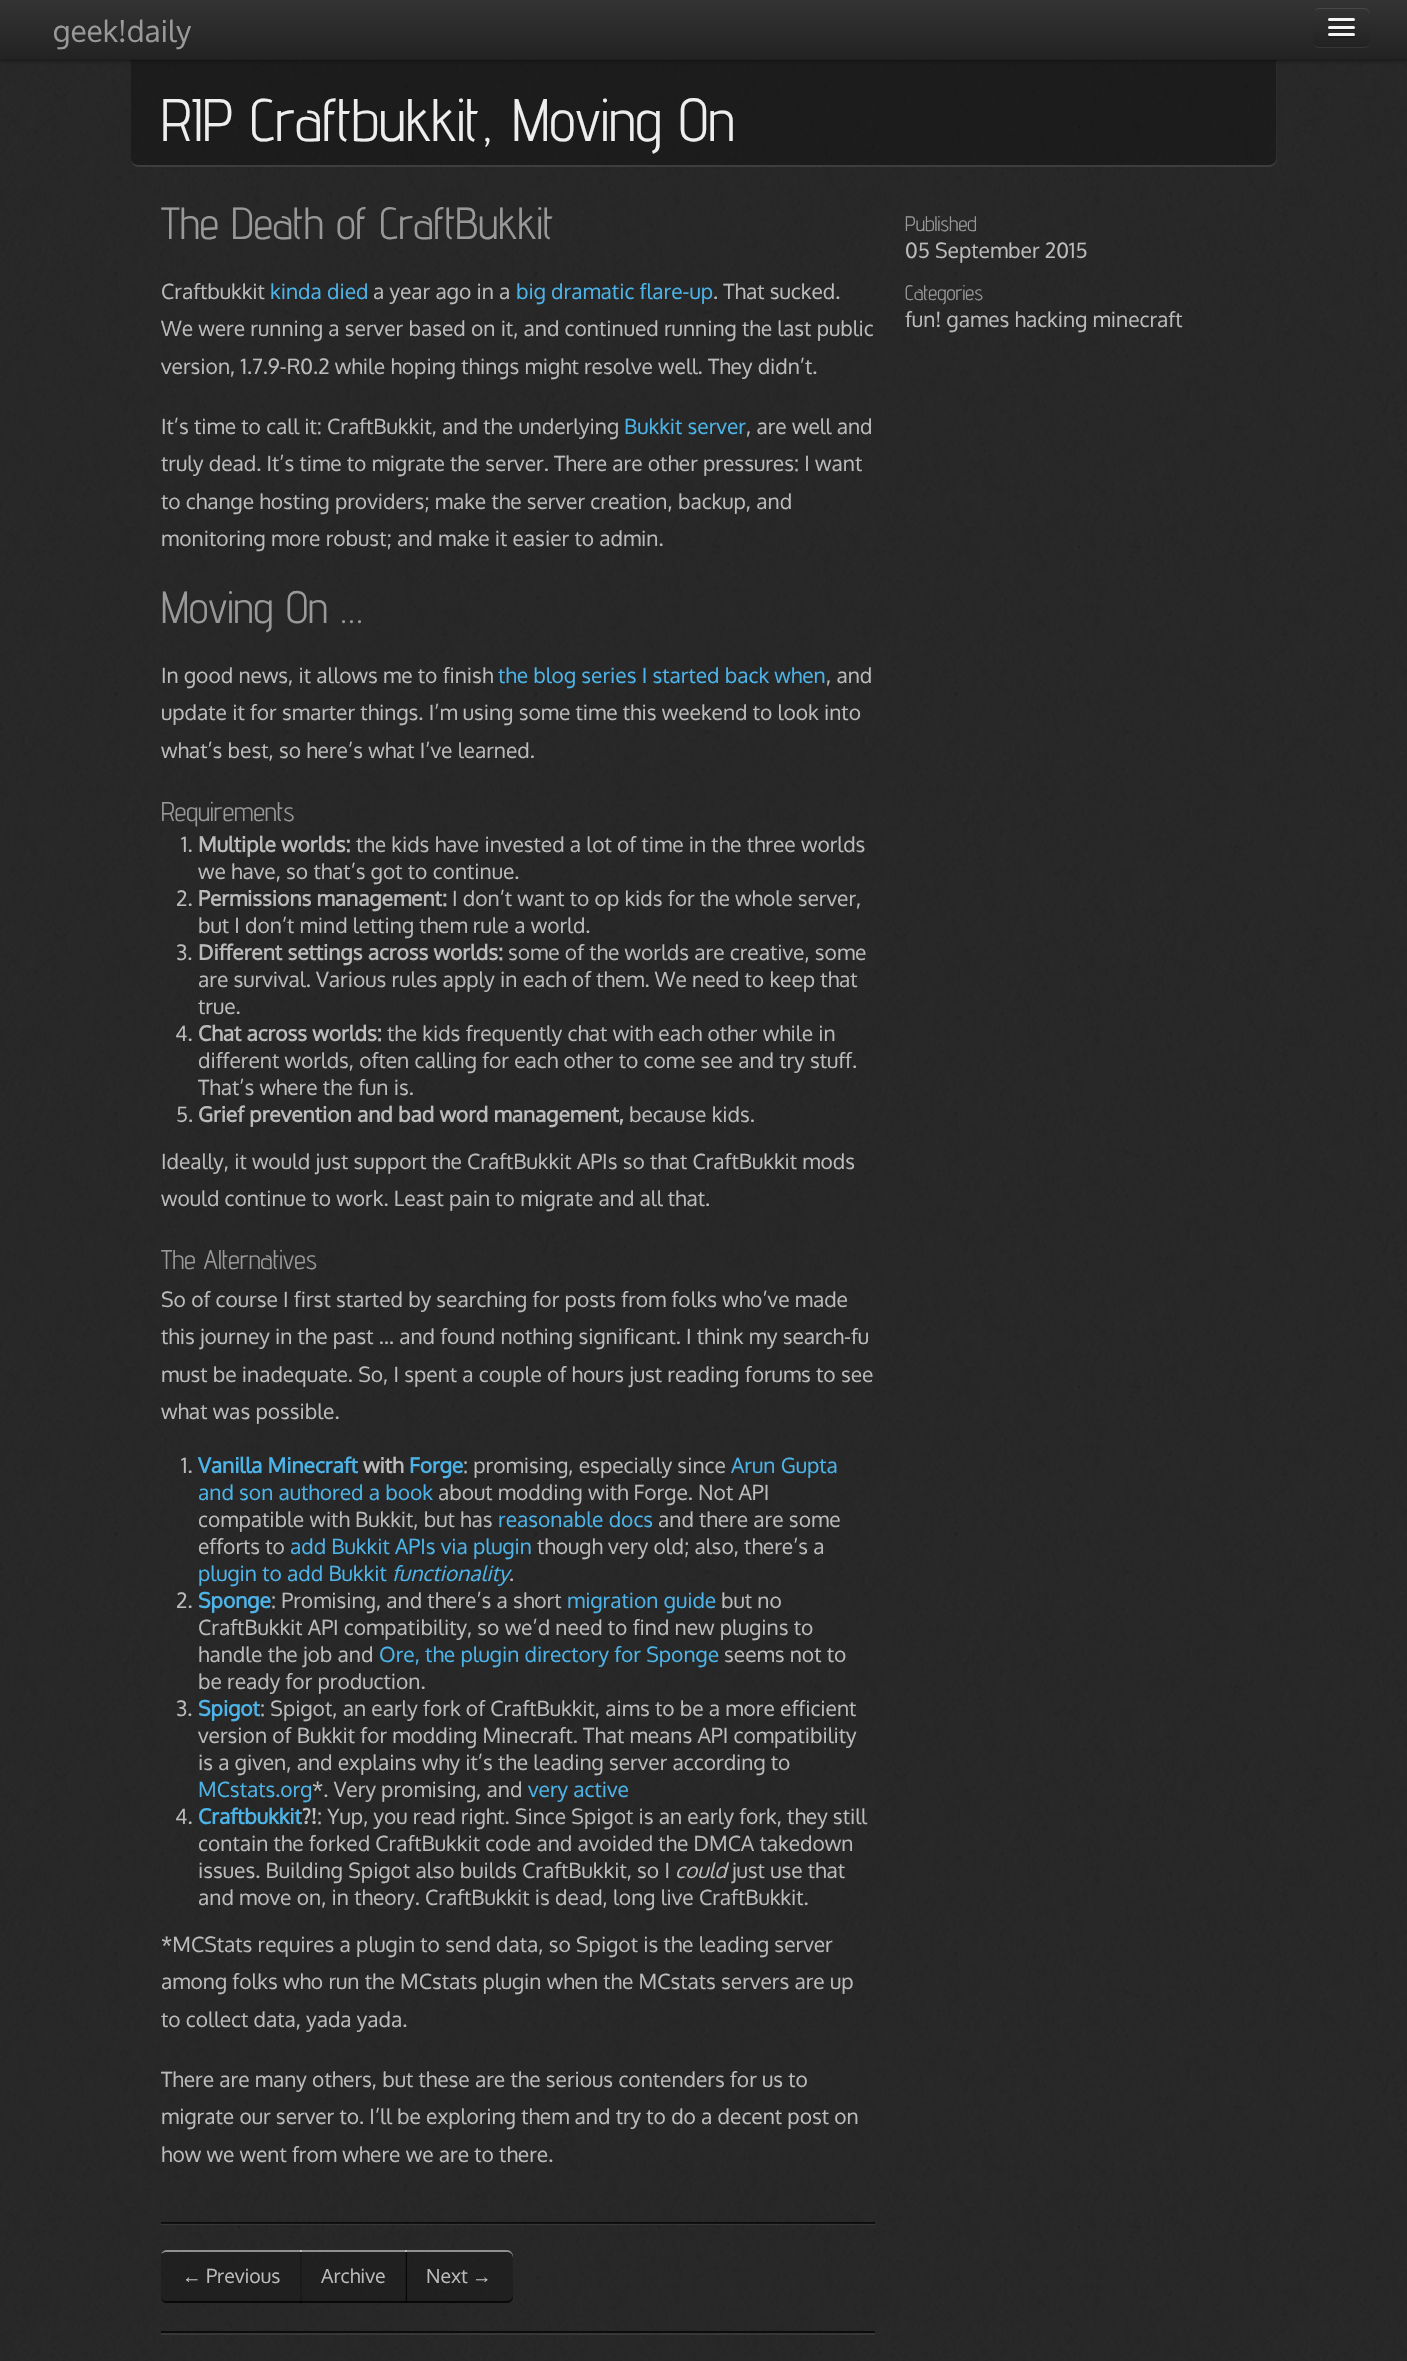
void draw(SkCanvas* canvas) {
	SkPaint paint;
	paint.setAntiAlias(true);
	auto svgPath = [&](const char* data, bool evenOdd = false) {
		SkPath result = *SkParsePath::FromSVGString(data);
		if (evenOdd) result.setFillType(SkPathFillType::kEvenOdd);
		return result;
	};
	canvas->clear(0xffffffff);
	canvas->drawImageRect(SkImages::DeferredFromEncodedData(SkData::MakeFromFileName("img1.png")), SkRect::MakeXYWH(0, 60, 1407, 2301), SkSamplingOptions());
	paint.setColor(0x40000000);
	paint.setMaskFilter(SkMaskFilter::MakeBlur(kNormal_SkBlurStyle, 2));
	canvas->drawRect(SkRect::MakeXYWH(0, 2, 1407, 60), paint);
	paint.setMaskFilter(nullptr);
	{
		const SkColor colors[] = {0xff333333, 0xff222222};
		const float stops[] = {0, 1};
		const SkPoint ends[] = {{704, 0}, {704, 60}};
		paint.setShader(SkGradientShader::MakeLinear(ends, colors, stops, 2, SkTileMode::kClamp));
		paint.setAlpha(255);
	}
	canvas->drawRect(SkRect::MakeXYWH(0, 0, 1407, 60), paint);
	paint.setShader(nullptr);
	paint.setColor(0x1a000000);
	canvas->drawRect(SkRect::MakeXYWH(0, 59, 1407, 2), paint);
	SkFont f1(fontMgr->matchFamilyStyle("Oxygen", SkFontStyle::Normal()), 30);
	f1.setSubpixel(true);
	paint.setColor(0xff999999);
	canvas->drawString("geek!daily", 53, 42, f1, paint);
	paint.setColor(0x12ffffff);
	canvas->drawPath(svgPath("M1313 43C1314 46 1316 48 1319 48H1364C1367 48 1370 45 1370 42V15L1369 12L1370 40C1370 44 1367 46 1364 46H1318C1316 46 1314 45 1313 43Z"), paint);
	{
		const SkColor colors[] = {0xff333333, 0xff222222};
		const float stops[] = {0, 1};
		const SkPoint ends[] = {{1341, 7.5}, {1341, 47}};
		paint.setShader(SkGradientShader::MakeLinear(ends, colors, stops, 2, SkTileMode::kClamp));
		paint.setAlpha(255);
	}
	canvas->drawRoundRect(SkRect::MakeXYWH(1313, 8, 57, 39), 6, 6, paint);
	paint.setShader(nullptr);
	paint.setColor(0xff474747);
	canvas->drawPath(svgPath("M1318 9H1364C1367 9 1370 12 1370 15V14C1370 11 1367 8 1364 8H1319C1317 8 1315 9 1314 11C1315 10 1317 9 1318 9Z"), paint);
	paint.setColor(0xff222222);
	canvas->drawPath(svgPath("M1328 21C1326.5 24 1333.5 23 1333.5 23H1354C1355 22.5 1355.5 21 1354.5 20L1353 21C1351 21.5 1329 21.5 1328 21Z"), paint);
	paint.setColor(0xfff5f5f5);
	canvas->drawRoundRect(SkRect::MakeXYWH(1328, 18, 27, 3), 1.5, 1.5, paint);
	paint.setColor(0xff202020);
	canvas->drawPath(svgPath("M1328 28C1327.5 31 1333 30 1333.5 30H1353.5C1355 30 1355.5 28 1354.5 27.5L1353.5 28.5C1352 29 1328.5 28.5 1328 28Z"), paint);
	paint.setColor(0xfff5f5f5);
	canvas->drawRoundRect(SkRect::MakeXYWH(1328, 26, 27, 3), 1.5, 1.5, paint);
	paint.setColor(0xff1d1d1d);
	canvas->drawPath(svgPath("M1328 36C1326.5 39 1333.5 38 1333.5 38H1354C1355 37.5 1355.5 36 1354.5 35L1353 36C1351 36.5 1329 36.5 1328 36Z"), paint);
	paint.setColor(0xfff5f5f5);
	canvas->drawRoundRect(SkRect::MakeXYWH(1328, 33, 27, 3), 1.5, 1.5, paint);
	paint.setColor(0x1affffff);
	canvas->drawPath(svgPath("M131 161C132 164 135 167 139 167H1269C1273 167 1277 163 1277 159V62H1276V158C1276 162 1273 165 1269 165H138C135 165 132 163 131 161Z"), paint);
	paint.setColor(0x4d000000);
	canvas->drawPath(svgPath("M131 60H1277V157C1277 161.5 1273.5 165 1269 165H139C134.5 165 131 161.5 131 157Z"), paint);
	SkFont f2(fontMgr->matchFamilyStyle("Advent Pro", SkFontStyle::Normal()), 60);
	f2.setSubpixel(true);
	paint.setColor(0xffeeeeee);
	canvas->drawString("RIP Craftbukkit, Moving On", 161, 141, f2, paint);
	SkFont f3(fontMgr->matchFamilyStyle("Advent Pro", SkFontStyle::Normal()), 45);
	f3.setSubpixel(true);
	paint.setColor(0xff999999);
	canvas->drawString("The Death of CraftBukkit", 161, 239, f3, paint);
	SkFont f4(fontMgr->matchFamilyStyle("Oxygen", SkFontStyle::Normal()), 21);
	f4.setSubpixel(true);
	paint.setColor(0xffbbbbbb);
	canvas->drawString("Craftbukkit", 161, 299, f4, paint);
	paint.setColor(0xff4cb4e8);
	canvas->drawString("kinda died", 270, 299, f4, paint);
	paint.setColor(0xffbbbbbb);
	canvas->drawString("a year ago in a", 373, 299, f4, paint);
	paint.setColor(0xff4cb4e8);
	canvas->drawString("big dramatic flare-up", 516, 299, f4, paint);
	paint.setColor(0xffbbbbbb);
	canvas->drawString(". That sucked.", 713, 299, f4, paint);
	canvas->drawString("We were running a server based on it, and continued running the last public", 161, 336, f4, paint);
	canvas->drawString("version, 1.7.9-R0.2 while hoping things might resolve well. They didn’t.", 161, 374, f4, paint);
	canvas->drawString("It’s time to call it: CraftBukkit, and the underlying", 161, 434, f4, paint);
	paint.setColor(0xff4cb4e8);
	canvas->drawString("Bukkit server", 624, 434, f4, paint);
	paint.setColor(0xffbbbbbb);
	canvas->drawString(", are well and", 746, 434, f4, paint);
	canvas->drawString("truly dead. It’s time to migrate the server. There are other pressures: I want", 161, 471, f4, paint);
	canvas->drawString("to change hosting providers; make the server creation, backup, and", 161, 509, f4, paint);
	canvas->drawString("monitoring more robust; and make it easier to admin.", 161, 546, f4, paint);
	paint.setColor(0xff999999);
	canvas->drawString("Moving On …", 161, 623, f3, paint);
	paint.setColor(0xffbbbbbb);
	canvas->drawString("In good news, it allows me to finish", 161, 683, f4, paint);
	paint.setColor(0xff4cb4e8);
	canvas->drawString("the blog series I started back when", 498, 683, f4, paint);
	paint.setColor(0xffbbbbbb);
	canvas->drawString(", and", 826, 683, f4, paint);
	canvas->drawString("update it for smarter things. I’m using some time this weekend to look into", 161, 720, f4, paint);
	canvas->drawString("what’s best, so here’s what I’ve learned.", 161, 758, f4, paint);
	SkFont f5(fontMgr->matchFamilyStyle("Advent Pro", SkFontStyle::Normal()), 27);
	f5.setSubpixel(true);
	paint.setColor(0xff999999);
	canvas->drawString("Requirements", 161, 821, f5, paint);
	paint.setColor(0xffbbbbbb);
	canvas->drawString("1.", 181, 852, f4, paint);
	SkFont f6(fontMgr->matchFamilyStyle("Oxygen", SkFontStyle::Bold()), 21);
	f6.setSubpixel(true);
	canvas->drawString("Multiple worlds:", 198, 852, f6, paint);
	canvas->drawString("the kids have invested a lot of time in the three worlds", 356, 852, f4, paint);
	canvas->drawString("we have, so that’s got to continue.", 198, 879, f4, paint);
	canvas->drawString("2.", 176, 906, f4, paint);
	canvas->drawString("Permissions management:", 198, 906, f6, paint);
	canvas->drawString("I don’t want to op kids for the whole server,", 452, 906, f4, paint);
	canvas->drawString("but I don’t mind letting them rule a world.", 198, 933, f4, paint);
	canvas->drawString("3.", 176, 960, f4, paint);
	canvas->drawString("Different settings across worlds:", 198, 960, f6, paint);
	canvas->drawString("some of the worlds are creative, some", 508, 960, f4, paint);
	canvas->drawString("are survival. Various rules apply in each of them. We need to keep that", 198, 987, f4, paint);
	canvas->drawString("true.", 198, 1014, f4, paint);
	canvas->drawString("4.", 175, 1041, f4, paint);
	canvas->drawString("Chat across worlds:", 198, 1041, f6, paint);
	canvas->drawString("the kids frequently chat with each other while in", 387, 1041, f4, paint);
	canvas->drawString("different worlds, often calling for each other to come see and try stuff.", 198, 1068, f4, paint);
	canvas->drawString("That’s where the fun is.", 198, 1095, f4, paint);
	canvas->drawString("5.", 176, 1122, f4, paint);
	canvas->drawString("Grief prevention and bad word management,", 198, 1122, f6, paint);
	canvas->drawString("because kids.", 629, 1122, f4, paint);
	canvas->drawString("Ideally, it would just support the CraftBukkit APIs so that CraftBukkit mods", 161, 1169, f4, paint);
	canvas->drawString("would continue to work. Least pain to migrate and all that.", 161, 1206, f4, paint);
	paint.setColor(0xff999999);
	canvas->drawString("The Alternatives", 161, 1269, f5, paint);
	paint.setColor(0xffbbbbbb);
	canvas->drawString("So of course I first started by searching for posts from folks who’ve made", 161, 1307, f4, paint);
	canvas->drawString("this journey in the past … and found nothing significant. I think my search-fu", 161, 1344, f4, paint);
	canvas->drawString("must be inadequate. So, I spent a couple of hours just reading forums to see", 161, 1382, f4, paint);
	canvas->drawString("what was possible.", 161, 1419, f4, paint);
	canvas->drawString("1.", 181, 1473, f4, paint);
	paint.setColor(0xff4cb4e8);
	canvas->drawString("Vanilla Minecraft", 198, 1473, f6, paint);
	paint.setColor(0xffbbbbbb);
	canvas->drawString("with", 363, 1473, f6, paint);
	paint.setColor(0xff4cb4e8);
	canvas->drawString("Forge", 409, 1473, f6, paint);
	paint.setColor(0xffbbbbbb);
	canvas->drawString(": promising, especially since", 463, 1473, f4, paint);
	paint.setColor(0xff4cb4e8);
	canvas->drawString("Arun Gupta", 731, 1473, f4, paint);
	canvas->drawString("and son authored a book", 198, 1500, f4, paint);
	paint.setColor(0xffbbbbbb);
	canvas->drawString("about modding with Forge. Not API", 438, 1500, f4, paint);
	canvas->drawString("compatible with Bukkit, but has", 198, 1527, f4, paint);
	paint.setColor(0xff4cb4e8);
	canvas->drawString("reasonable docs", 498, 1527, f4, paint);
	paint.setColor(0xffbbbbbb);
	canvas->drawString("and there are some", 658, 1527, f4, paint);
	canvas->drawString("efforts to", 198, 1554, f4, paint);
	paint.setColor(0xff4cb4e8);
	canvas->drawString("add Bukkit APIs via plugin", 290, 1554, f4, paint);
	paint.setColor(0xffbbbbbb);
	canvas->drawString("though very old; also, there’s a", 537, 1554, f4, paint);
	paint.setColor(0xff4cb4e8);
	canvas->drawString("plugin to add Bukkit", 198, 1581, f4, paint);
	SkFont f7(fontMgr->matchFamilyStyle("Oxygen", SkFontStyle::Italic()), 21);
	f7.setSubpixel(true);
	canvas->drawString("functionality", 392, 1581, f7, paint);
	paint.setColor(0xffbbbbbb);
	canvas->drawString(".", 509, 1581, f4, paint);
	canvas->drawString("2.", 176, 1608, f4, paint);
	paint.setColor(0xff4cb4e8);
	canvas->drawString("Sponge", 198, 1608, f6, paint);
	paint.setColor(0xffbbbbbb);
	canvas->drawString(": Promising, and there’s a short", 271, 1608, f4, paint);
	paint.setColor(0xff4cb4e8);
	canvas->drawString("migration guide", 567, 1608, f4, paint);
	paint.setColor(0xffbbbbbb);
	canvas->drawString("but no", 721, 1608, f4, paint);
	canvas->drawString("CraftBukkit API compatibility, so we’d need to find new plugins to", 198, 1635, f4, paint);
	canvas->drawString("handle the job and", 198, 1662, f4, paint);
	paint.setColor(0xff4cb4e8);
	canvas->drawString("Ore, the plugin directory for Sponge", 379, 1662, f4, paint);
	paint.setColor(0xffbbbbbb);
	canvas->drawString("seems not to", 724, 1662, f4, paint);
	canvas->drawString("be ready for production.", 198, 1689, f4, paint);
	canvas->drawString("3.", 176, 1716, f4, paint);
	paint.setColor(0xff4cb4e8);
	canvas->drawString("Spigot", 198, 1716, f6, paint);
	paint.setColor(0xffbbbbbb);
	canvas->drawString(": Spigot, an early fork of CraftBukkit, aims to be a more efficient", 260, 1716, f4, paint);
	canvas->drawString("version of Bukkit for modding Minecraft. That means API compatibility", 198, 1743, f4, paint);
	canvas->drawString("is a given, and explains why it’s the leading server according to", 198, 1770, f4, paint);
	paint.setColor(0xff4cb4e8);
	canvas->drawString("MCstats.org", 198, 1797, f4, paint);
	paint.setColor(0xffbbbbbb);
	canvas->drawString("*. Very promising, and", 312, 1797, f4, paint);
	paint.setColor(0xff4cb4e8);
	canvas->drawString("very active", 528, 1797, f4, paint);
	paint.setColor(0xffbbbbbb);
	canvas->drawString("4.", 175, 1824, f4, paint);
	paint.setColor(0xff4cb4e8);
	canvas->drawString("Craftbukkit", 198, 1824, f6, paint);
	paint.setColor(0xffbbbbbb);
	canvas->drawString("?!", 302, 1824, f6, paint);
	canvas->drawString(": Yup, you read right. Since Spigot is an early fork, they still", 317, 1824, f4, paint);
	canvas->drawString("contain the forked CraftBukkit code and avoided the DMCA takedown", 198, 1851, f4, paint);
	canvas->drawString("issues. Building Spigot also builds CraftBukkit, so I", 198, 1878, f4, paint);
	canvas->drawString("could", 675, 1878, f7, paint);
	canvas->drawString("just use that", 732, 1878, f4, paint);
	canvas->drawString("and move on, in theory. CraftBukkit is dead, long live CraftBukkit.", 198, 1905, f4, paint);
	canvas->drawString("*MCStats requires a plugin to send data, so Spigot is the leading server", 161, 1952, f4, paint);
	canvas->drawString("among folks who run the MCstats plugin when the MCstats servers are up", 161, 1989, f4, paint);
	canvas->drawString("to collect data, yada yada.", 161, 2027, f4, paint);
	canvas->drawString("There are many others, but these are the serious contenders for us to", 161, 2087, f4, paint);
	canvas->drawString("migrate our server to. I’ll be exploring them and try to do a decent post on", 161, 2124, f4, paint);
	canvas->drawString("how we went from where we are to there.", 161, 2162, f4, paint);
	paint.setColor(0x12ffffff);
	canvas->drawRect(SkRect::MakeXYWH(161, 2223, 714, 2), paint);
	paint.setColor(0xb3000000);
	canvas->drawRect(SkRect::MakeXYWH(161, 2222, 714, 2), paint);
	paint.setColor(0xcc000000);
	canvas->drawPath(svgPath("M161 2297C161 2301 164 2303 167 2303H302V2252V2301H166C164 2301 162 2300 161 2297Z"), paint);
	paint.setColor(0x33000000);
	canvas->drawPath(svgPath("M167 2250H302V2301H167C163.5 2301 161 2298.5 161 2295V2256C161 2252.5 163.5 2250 167 2250Z"), paint);
	paint.setColor(0x80ffffff);
	canvas->drawPath(svgPath("M166 2252H302V2250H167C164 2250 162 2252 161 2254C162 2253 164 2252 166 2252Z"), paint);
	SkFont f8(fontMgr->matchFamilyStyle("Liberation Sans", SkFontStyle::Normal()), 19.5);
	f8.setSubpixel(true);
	paint.setColor(0xffbbbbbb);
	canvas->drawString("←", 182, 2283, f8, paint);
	SkFont f9(fontMgr->matchFamilyStyle("Oxygen", SkFontStyle::Normal()), 19.5);
	f9.setSubpixel(true);
	canvas->drawString("Previous", 206, 2283, f9, paint);
	paint.setColor(0xcc000000);
	canvas->drawPath(svgPath("M300 2301V2303H407V2252H406V2301Z"), paint);
	paint.setColor(0x33000000);
	canvas->drawRect(SkRect::MakeXYWH(300, 2250, 107, 51), paint);
	paint.setColor(0x80ffffff);
	canvas->drawRect(SkRect::MakeXYWH(300, 2250, 107, 2), paint);
	paint.setColor(0xffbbbbbb);
	canvas->drawString("Archive", 321, 2283, f9, paint);
	paint.setColor(0xcc000000);
	canvas->drawPath(svgPath("M405 2301V2303H507C510 2303 513 2300 513 2297V2295C513 2298 510 2301 507 2301Z"), paint);
	paint.setColor(0x33000000);
	canvas->drawPath(svgPath("M405 2250H507C510.5 2250 513 2252.5 513 2256V2295C513 2298.5 510.5 2301 507 2301H405Z"), paint);
	paint.setColor(0x80ffffff);
	canvas->drawPath(svgPath("M405 2252H507C510 2252 513 2254 513 2258V2256C513 2253 510 2250 507 2250H405Z"), paint);
	paint.setColor(0xffbbbbbb);
	canvas->drawString("Next", 426, 2283, f9, paint);
	canvas->drawString("→", 472, 2283, f8, paint);
	paint.setColor(0x12ffffff);
	canvas->drawRect(SkRect::MakeXYWH(161, 2333, 714, 2), paint);
	paint.setColor(0xb3000000);
	canvas->drawRect(SkRect::MakeXYWH(161, 2331, 714, 2), paint);
	SkFont f10(fontMgr->matchFamilyStyle("Advent Pro", SkFontStyle::Normal()), 21);
	f10.setSubpixel(true);
	paint.setColor(0xff999999);
	canvas->drawString("Published", 905, 231, f10, paint);
	paint.setColor(0xffbbbbbb);
	canvas->drawString("05 September 2015", 905, 258, f4, paint);
	paint.setColor(0xff999999);
	canvas->drawString("Categories", 905, 300, f10, paint);
	paint.setColor(0xffbbbbbb);
	canvas->drawString("fun! games hacking minecraft", 905, 327, f4, paint);
}
